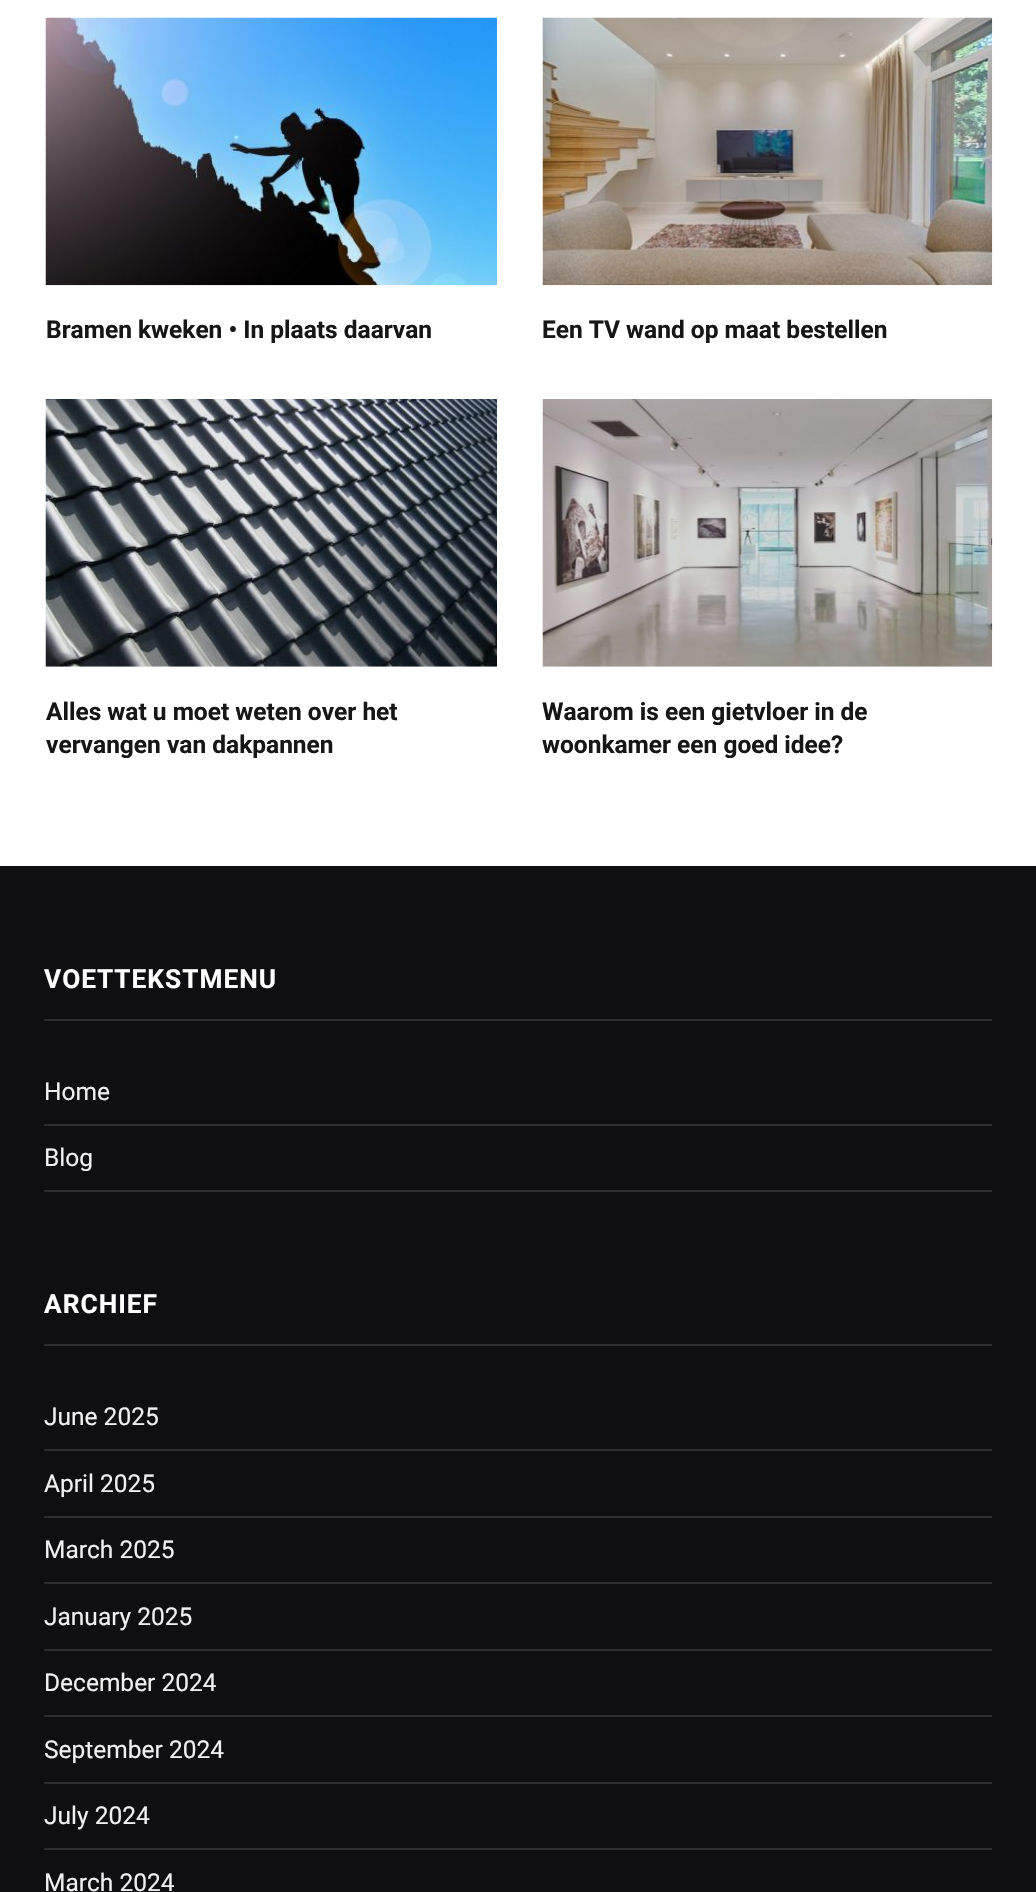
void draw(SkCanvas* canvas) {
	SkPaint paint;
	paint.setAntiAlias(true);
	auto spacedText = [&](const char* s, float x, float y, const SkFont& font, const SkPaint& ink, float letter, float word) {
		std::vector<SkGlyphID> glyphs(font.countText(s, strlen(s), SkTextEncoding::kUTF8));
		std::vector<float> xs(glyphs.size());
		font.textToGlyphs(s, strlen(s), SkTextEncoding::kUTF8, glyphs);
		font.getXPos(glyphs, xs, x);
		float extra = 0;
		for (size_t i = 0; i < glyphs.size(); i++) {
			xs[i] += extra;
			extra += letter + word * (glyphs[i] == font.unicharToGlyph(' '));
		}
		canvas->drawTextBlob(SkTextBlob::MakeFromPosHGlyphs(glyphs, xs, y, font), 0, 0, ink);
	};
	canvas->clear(0xffffffff);
	canvas->drawImageRect(SkImages::DeferredFromEncodedData(SkData::MakeFromFileName("img1.png")), SkRect::MakeXYWH(45, 17, 452, 269), SkSamplingOptions());
	SkFont f1(fontMgr->matchFamilyStyle("Roboto", SkFontStyle::Bold()), 24.5);
	f1.setSubpixel(true);
	paint.setColor(0xff161616);
	canvas->drawString("Bramen kweken • In plaats daarvan", 46, 338, f1, paint);
	canvas->drawImageRect(SkImages::DeferredFromEncodedData(SkData::MakeFromFileName("img2.png")), SkRect::MakeXYWH(542, 17, 451, 269), SkSamplingOptions());
	canvas->drawString("Een TV wand op maat bestellen", 542, 338, f1, paint);
	canvas->drawImageRect(SkImages::DeferredFromEncodedData(SkData::MakeFromFileName("img3.png")), SkRect::MakeXYWH(45, 399, 452, 268), SkSamplingOptions());
	canvas->drawString("Alles wat u moet weten over het", 46, 720, f1, paint);
	canvas->drawString("vervangen van dakpannen", 46, 753, f1, paint);
	canvas->drawImageRect(SkImages::DeferredFromEncodedData(SkData::MakeFromFileName("img4.png")), SkRect::MakeXYWH(542, 399, 451, 268), SkSamplingOptions());
	canvas->drawString("Waarom is een gietvloer in de", 542, 720, f1, paint);
	canvas->drawString("woonkamer een goed idee?", 542, 753, f1, paint);
	paint.setColor(0xff0f0f11);
	canvas->drawRect(SkRect::MakeXYWH(0, 866, 1036, 1026), paint);
	paint.setColor(0xff2e2e30);
	canvas->drawRect(SkRect::MakeXYWH(44, 1019, 948, 2), paint);
	SkFont f2(fontMgr->matchFamilyStyle("Roboto", SkFontStyle::Bold()), 26.25);
	f2.setSubpixel(true);
	paint.setColor(0xffffffff);
	spacedText("VOETTEKSTMENU", 44, 988, f2, paint, 1, 0);
	paint.setColor(0xff2e2e30);
	canvas->drawRect(SkRect::MakeXYWH(44, 1124, 948, 2), paint);
	SkFont f3(fontMgr->matchFamilyStyle("Roboto", SkFontStyle::Normal()), 24.5);
	f3.setSubpixel(true);
	paint.setColor(0xfff0f0f0);
	canvas->drawString("Home", 44, 1100, f3, paint);
	paint.setColor(0xff2e2e30);
	canvas->drawRect(SkRect::MakeXYWH(44, 1190, 948, 2), paint);
	paint.setColor(0xfff0f0f0);
	canvas->drawString("Blog", 44, 1166, f3, paint);
	paint.setColor(0xff2e2e30);
	canvas->drawRect(SkRect::MakeXYWH(44, 1344, 948, 2), paint);
	paint.setColor(0xffffffff);
	spacedText("ARCHIEF", 44, 1313, f2, paint, 1, 0);
	paint.setColor(0xff2e2e30);
	canvas->drawRect(SkRect::MakeXYWH(44, 1449, 948, 2), paint);
	paint.setColor(0xfff0f0f0);
	canvas->drawString("June 2025", 44, 1425, f3, paint);
	paint.setColor(0xff2e2e30);
	canvas->drawRect(SkRect::MakeXYWH(44, 1516, 948, 2), paint);
	paint.setColor(0xfff0f0f0);
	canvas->drawString("April 2025", 44, 1492, f3, paint);
	paint.setColor(0xff2e2e30);
	canvas->drawRect(SkRect::MakeXYWH(44, 1582, 948, 2), paint);
	paint.setColor(0xfff0f0f0);
	canvas->drawString("March 2025", 44, 1558, f3, paint);
	paint.setColor(0xff2e2e30);
	canvas->drawRect(SkRect::MakeXYWH(44, 1649, 948, 2), paint);
	paint.setColor(0xfff0f0f0);
	canvas->drawString("January 2025", 44, 1625, f3, paint);
	paint.setColor(0xff2e2e30);
	canvas->drawRect(SkRect::MakeXYWH(44, 1715, 948, 2), paint);
	paint.setColor(0xfff0f0f0);
	canvas->drawString("December 2024", 44, 1691, f3, paint);
	paint.setColor(0xff2e2e30);
	canvas->drawRect(SkRect::MakeXYWH(44, 1782, 948, 2), paint);
	paint.setColor(0xfff0f0f0);
	canvas->drawString("September 2024", 44, 1758, f3, paint);
	paint.setColor(0xff2e2e30);
	canvas->drawRect(SkRect::MakeXYWH(44, 1848, 948, 2), paint);
	paint.setColor(0xfff0f0f0);
	canvas->drawString("July 2024", 44, 1824, f3, paint);
	canvas->drawString("March 2024", 44, 1891, f3, paint);
}
